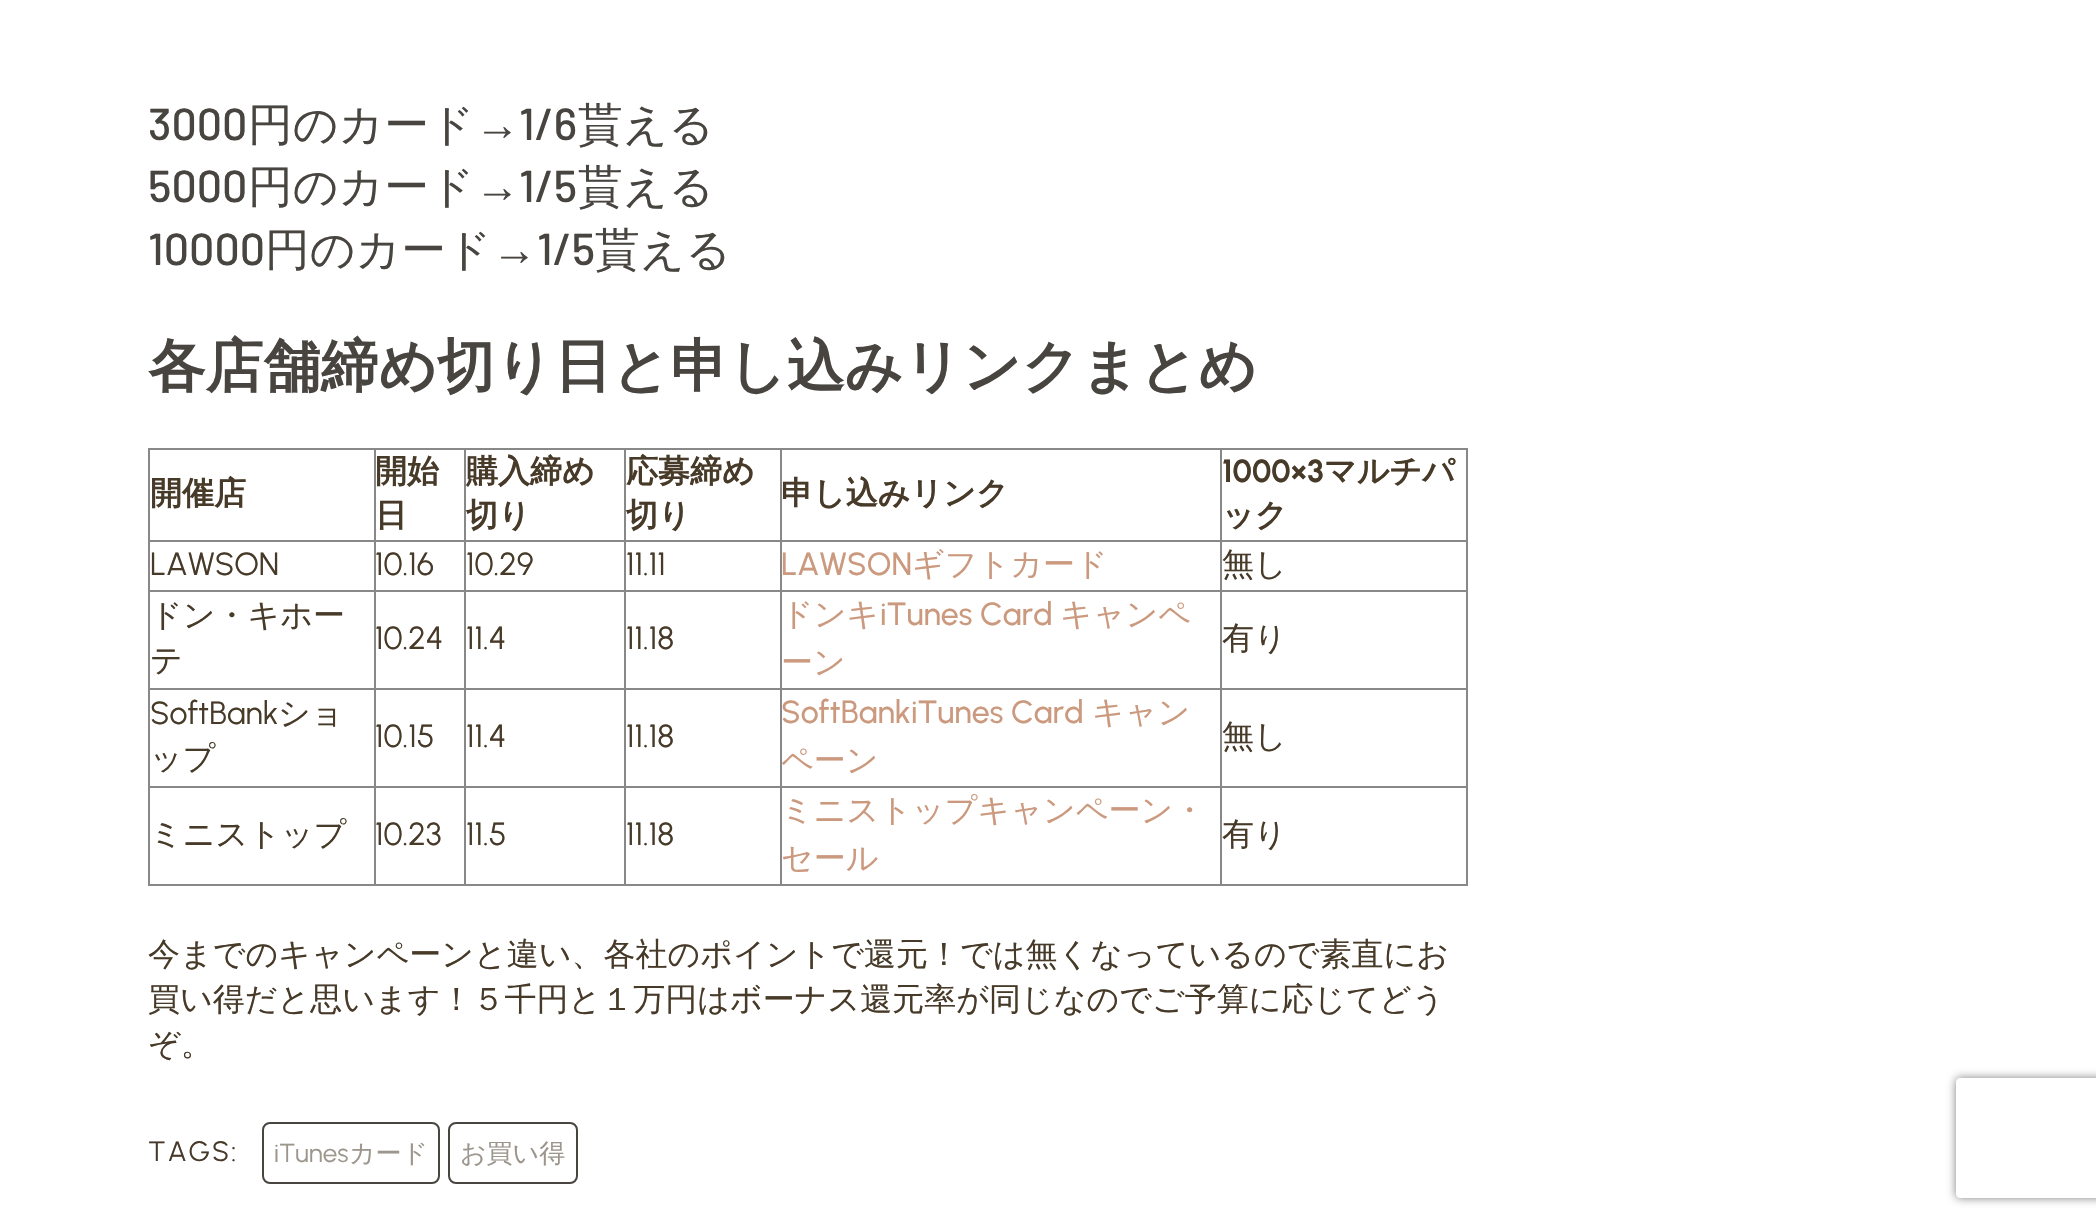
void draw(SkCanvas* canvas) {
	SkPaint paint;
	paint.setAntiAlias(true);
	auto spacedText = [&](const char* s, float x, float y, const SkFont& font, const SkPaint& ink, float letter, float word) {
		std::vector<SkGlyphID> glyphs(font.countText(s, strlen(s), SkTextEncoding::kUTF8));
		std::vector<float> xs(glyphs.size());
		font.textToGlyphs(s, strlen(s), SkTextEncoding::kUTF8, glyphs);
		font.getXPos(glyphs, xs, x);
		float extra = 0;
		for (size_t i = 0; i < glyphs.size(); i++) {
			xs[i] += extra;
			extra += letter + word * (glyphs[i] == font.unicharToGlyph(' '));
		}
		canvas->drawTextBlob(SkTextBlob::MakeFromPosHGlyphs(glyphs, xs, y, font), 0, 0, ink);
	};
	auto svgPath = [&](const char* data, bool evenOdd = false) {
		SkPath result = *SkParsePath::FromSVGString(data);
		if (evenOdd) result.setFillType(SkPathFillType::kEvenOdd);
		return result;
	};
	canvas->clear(0xffffffff);
	SkFont f1(fontMgr->matchFamilyStyle("Barlow", SkFontStyle(500, SkFontStyle::kNormal_Width, SkFontStyle::kUpright_Slant)), 44.75);
	f1.setSubpixel(true);
	paint.setColor(0xff484541);
	canvas->drawString("3000", 148, 140, f1, paint);
	SkFont f2(fontMgr->matchFamilyStyle("WenQuanYi Zen Hei", SkFontStyle(500, SkFontStyle::kNormal_Width, SkFontStyle::kUpright_Slant)), 44.75);
	f2.setSubpixel(true);
	canvas->drawString("円のカード", 248, 140, f2, paint);
	SkFont f3(fontMgr->matchFamilyStyle("Liberation Sans", SkFontStyle::Normal()), 44.75);
	f3.setSubpixel(true);
	canvas->drawString("→", 475, 140, f3, paint);
	canvas->drawString("1/6", 519, 140, f1, paint);
	canvas->drawString("貰える", 578, 140, f2, paint);
	canvas->drawString("5000", 148, 202, f1, paint);
	canvas->drawString("円のカード", 248, 202, f2, paint);
	canvas->drawString("→", 475, 202, f3, paint);
	canvas->drawString("1/5", 519, 202, f1, paint);
	canvas->drawString("貰える", 578, 202, f2, paint);
	canvas->drawString("10000", 148, 265, f1, paint);
	canvas->drawString("円のカード", 265, 265, f2, paint);
	canvas->drawString("→", 492, 265, f3, paint);
	canvas->drawString("1/5", 537, 265, f1, paint);
	canvas->drawString("貰える", 595, 265, f2, paint);
	SkFont f4(fontMgr->matchFamilyStyle("WenQuanYi Zen Hei", SkFontStyle::Bold()), 57.6);
	f4.setSubpixel(true);
	canvas->drawString("各店舗締め切り日と申し込みリンクまとめ", 148, 386, f4, paint);
	paint.setColor(0xff888888);
	canvas->drawRect(SkRect::MakeXYWH(148, 448, 1320, 2), paint);
	canvas->drawRect(SkRect::MakeXYWH(1466, 448, 2, 438), paint);
	canvas->drawRect(SkRect::MakeXYWH(148, 884, 1320, 2), paint);
	canvas->drawRect(SkRect::MakeXYWH(148, 448, 2, 438), paint);
	SkFont f5(fontMgr->matchFamilyStyle("WenQuanYi Zen Hei", SkFontStyle::Bold()), 32);
	f5.setSubpixel(true);
	paint.setColor(0xff473a28);
	canvas->drawString("開催店", 150, 504, f5, paint);
	paint.setColor(0xff888888);
	canvas->drawRect(SkRect::MakeXYWH(1220, 540, 248, 2), paint);
	canvas->drawRect(SkRect::MakeXYWH(1220, 590, 248, 2), paint);
	canvas->drawRect(SkRect::MakeXYWH(1220, 688, 248, 2), paint);
	canvas->drawRect(SkRect::MakeXYWH(1220, 786, 248, 2), paint);
	canvas->drawRect(SkRect::MakeXYWH(1220, 786, 2, 100), paint);
	canvas->drawRect(SkRect::MakeXYWH(780, 786, 442, 2), paint);
	canvas->drawRect(SkRect::MakeXYWH(1220, 688, 2, 100), paint);
	canvas->drawRect(SkRect::MakeXYWH(780, 688, 442, 2), paint);
	canvas->drawRect(SkRect::MakeXYWH(1220, 590, 2, 100), paint);
	canvas->drawRect(SkRect::MakeXYWH(780, 590, 442, 2), paint);
	canvas->drawRect(SkRect::MakeXYWH(1220, 540, 2, 52), paint);
	canvas->drawRect(SkRect::MakeXYWH(780, 540, 442, 2), paint);
	canvas->drawRect(SkRect::MakeXYWH(780, 786, 2, 100), paint);
	canvas->drawRect(SkRect::MakeXYWH(624, 786, 158, 2), paint);
	canvas->drawRect(SkRect::MakeXYWH(780, 688, 2, 100), paint);
	canvas->drawRect(SkRect::MakeXYWH(624, 688, 158, 2), paint);
	canvas->drawRect(SkRect::MakeXYWH(780, 590, 2, 100), paint);
	canvas->drawRect(SkRect::MakeXYWH(624, 590, 158, 2), paint);
	canvas->drawRect(SkRect::MakeXYWH(780, 540, 2, 52), paint);
	canvas->drawRect(SkRect::MakeXYWH(624, 540, 158, 2), paint);
	canvas->drawRect(SkRect::MakeXYWH(624, 786, 2, 100), paint);
	canvas->drawRect(SkRect::MakeXYWH(464, 786, 162, 2), paint);
	canvas->drawRect(SkRect::MakeXYWH(624, 688, 2, 100), paint);
	canvas->drawRect(SkRect::MakeXYWH(464, 688, 162, 2), paint);
	canvas->drawRect(SkRect::MakeXYWH(624, 590, 2, 100), paint);
	canvas->drawRect(SkRect::MakeXYWH(464, 590, 162, 2), paint);
	canvas->drawRect(SkRect::MakeXYWH(624, 540, 2, 52), paint);
	canvas->drawRect(SkRect::MakeXYWH(464, 540, 162, 2), paint);
	canvas->drawRect(SkRect::MakeXYWH(464, 786, 2, 100), paint);
	canvas->drawRect(SkRect::MakeXYWH(374, 786, 92, 2), paint);
	canvas->drawRect(SkRect::MakeXYWH(464, 688, 2, 100), paint);
	canvas->drawRect(SkRect::MakeXYWH(374, 688, 92, 2), paint);
	canvas->drawRect(SkRect::MakeXYWH(464, 590, 2, 100), paint);
	canvas->drawRect(SkRect::MakeXYWH(374, 590, 92, 2), paint);
	canvas->drawRect(SkRect::MakeXYWH(464, 540, 2, 52), paint);
	canvas->drawRect(SkRect::MakeXYWH(374, 540, 92, 2), paint);
	canvas->drawRect(SkRect::MakeXYWH(374, 786, 2, 100), paint);
	canvas->drawRect(SkRect::MakeXYWH(148, 786, 228, 2), paint);
	canvas->drawRect(SkRect::MakeXYWH(374, 688, 2, 100), paint);
	canvas->drawRect(SkRect::MakeXYWH(148, 688, 228, 2), paint);
	canvas->drawRect(SkRect::MakeXYWH(374, 590, 2, 100), paint);
	canvas->drawRect(SkRect::MakeXYWH(148, 590, 228, 2), paint);
	canvas->drawRect(SkRect::MakeXYWH(374, 540, 2, 52), paint);
	canvas->drawRect(SkRect::MakeXYWH(148, 540, 228, 2), paint);
	canvas->drawRect(SkRect::MakeXYWH(374, 448, 2, 94), paint);
	paint.setColor(0xff473a28);
	canvas->drawString("開始", 375, 482, f5, paint);
	canvas->drawString("日", 375, 526, f5, paint);
	paint.setColor(0xff888888);
	canvas->drawRect(SkRect::MakeXYWH(464, 448, 2, 94), paint);
	paint.setColor(0xff473a28);
	canvas->drawString("購入締め", 466, 482, f5, paint);
	canvas->drawString("切り", 466, 526, f5, paint);
	paint.setColor(0xff888888);
	canvas->drawRect(SkRect::MakeXYWH(624, 448, 2, 94), paint);
	paint.setColor(0xff473a28);
	canvas->drawString("応募締め", 626, 482, f5, paint);
	canvas->drawString("切り", 626, 526, f5, paint);
	paint.setColor(0xff888888);
	canvas->drawRect(SkRect::MakeXYWH(780, 448, 2, 94), paint);
	paint.setColor(0xff473a28);
	canvas->drawString("申し込みリンク", 781, 504, f5, paint);
	paint.setColor(0xff888888);
	canvas->drawRect(SkRect::MakeXYWH(1220, 448, 2, 94), paint);
	SkFont f6(fontMgr->matchFamilyStyle("Urbanist", SkFontStyle::Bold()), 32);
	f6.setSubpixel(true);
	paint.setColor(0xff473a28);
	canvas->drawString("1000×3", 1222, 482, f6, paint);
	canvas->drawString("マルチパ", 1324, 482, f5, paint);
	canvas->drawString("ック", 1222, 526, f5, paint);
	SkFont f7(fontMgr->matchFamilyStyle("Urbanist", SkFontStyle::Normal()), 32);
	f7.setSubpixel(true);
	canvas->drawString("LAWSON", 150, 575, f7, paint);
	canvas->drawString("10.16", 375, 575, f7, paint);
	canvas->drawString("10.29", 466, 575, f7, paint);
	canvas->drawString("11.11", 626, 575, f7, paint);
	SkFont f8(fontMgr->matchFamilyStyle("Urbanist", SkFontStyle(500, SkFontStyle::kNormal_Width, SkFontStyle::kUpright_Slant)), 32);
	f8.setSubpixel(true);
	paint.setColor(0xffcb997e);
	canvas->drawString("LAWSON", 781, 575, f8, paint);
	SkFont f9(fontMgr->matchFamilyStyle("WenQuanYi Zen Hei", SkFontStyle(500, SkFontStyle::kNormal_Width, SkFontStyle::kUpright_Slant)), 32);
	f9.setSubpixel(true);
	canvas->drawString("ギフトカード", 912, 575, f9, paint);
	paint.setColor(0xff473a28);
	canvas->drawString("無し", 1222, 575, f9, paint);
	canvas->drawString("ドン・キホー", 150, 626, f9, paint);
	canvas->drawString("テ", 150, 671, f9, paint);
	canvas->drawString("10.24", 375, 649, f7, paint);
	canvas->drawString("11.4", 466, 649, f7, paint);
	canvas->drawString("11.18", 626, 649, f7, paint);
	paint.setColor(0xffcb997e);
	canvas->drawString("ドンキ", 781, 625, f9, paint);
	canvas->drawString("iTunes Card", 880, 625, f8, paint);
	canvas->drawString("キャンペ", 1060, 625, f9, paint);
	canvas->drawString("ーン", 781, 673, f9, paint);
	paint.setColor(0xff473a28);
	canvas->drawString("有り", 1222, 649, f9, paint);
	canvas->drawString("SoftBank", 150, 724, f7, paint);
	canvas->drawString("ショ", 278, 724, f9, paint);
	canvas->drawString("ップ", 150, 769, f9, paint);
	canvas->drawString("10.15", 375, 747, f7, paint);
	canvas->drawString("11.4", 466, 747, f7, paint);
	canvas->drawString("11.18", 626, 747, f7, paint);
	paint.setColor(0xffcb997e);
	canvas->drawString("SoftBankiTunes Card", 781, 723, f8, paint);
	canvas->drawString("キャン", 1092, 723, f9, paint);
	canvas->drawString("ペーン", 781, 771, f9, paint);
	paint.setColor(0xff473a28);
	canvas->drawString("無し", 1222, 747, f9, paint);
	canvas->drawString("ミニストップ", 150, 845, f9, paint);
	canvas->drawString("10.23", 375, 845, f7, paint);
	canvas->drawString("11.5", 466, 845, f7, paint);
	canvas->drawString("11.18", 626, 845, f7, paint);
	paint.setColor(0xffcb997e);
	canvas->drawString("ミニストップキャンペーン・", 781, 821, f9, paint);
	canvas->drawString("セール", 781, 869, f9, paint);
	paint.setColor(0xff473a28);
	canvas->drawString("有り", 1222, 845, f9, paint);
	canvas->drawString("今までのキャンペーンと違い、各社のポイントで還元！では無くなっているので素直にお", 148, 965, f9, paint);
	canvas->drawString("買い得だと思います！５千円と１万円はボーナス還元率が同じなのでご予算に応じてどう", 148, 1010, f9, paint);
	canvas->drawString("ぞ。", 148, 1055, f9, paint);
	SkFont f10(fontMgr->matchFamilyStyle("Urbanist", SkFontStyle::Normal()), 28);
	f10.setSubpixel(true);
	spacedText("TAGS:", 148, 1161, f10, paint, 2, 0);
	paint.setStroke(true);
	paint.setStrokeWidth(2);
	paint.setColor(0xff484541);
	canvas->drawRoundRect(SkRect::MakeXYWH(263, 1123, 176, 60), 7, 7, paint);
	SkFont f11(fontMgr->matchFamilyStyle("Urbanist", SkFontStyle::Normal()), 26);
	f11.setSubpixel(true);
	paint.setStroke(false);
	paint.setColor(0xff9c968d);
	canvas->drawString("iTunes", 274, 1162, f11, paint);
	SkFont f12(fontMgr->matchFamilyStyle("WenQuanYi Zen Hei", SkFontStyle(500, SkFontStyle::kNormal_Width, SkFontStyle::kUpright_Slant)), 26);
	f12.setSubpixel(true);
	canvas->drawString("カード", 349, 1162, f12, paint);
	paint.setStroke(true);
	paint.setColor(0xff484541);
	canvas->drawRoundRect(SkRect::MakeXYWH(449, 1123, 128, 60), 7, 7, paint);
	paint.setStroke(false);
	paint.setColor(0xff9c968d);
	canvas->drawString("お買い得", 460, 1162, f12, paint);
	canvas->save();
	canvas->clipPath(svgPath("M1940 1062H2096V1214H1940ZM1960 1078H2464C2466 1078 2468 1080 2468 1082V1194C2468 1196 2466 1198 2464 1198H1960C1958 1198 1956 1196 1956 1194V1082C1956 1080 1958 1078 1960 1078Z", true), true);
	paint.setColor(0xff808080);
	paint.setMaskFilter(SkMaskFilter::MakeBlur(kNormal_SkBlurStyle, 5));
	canvas->drawRoundRect(SkRect::MakeXYWH(1956, 1078, 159, 120), 4, 4, paint);
	paint.setMaskFilter(nullptr);
	canvas->restore();
}
